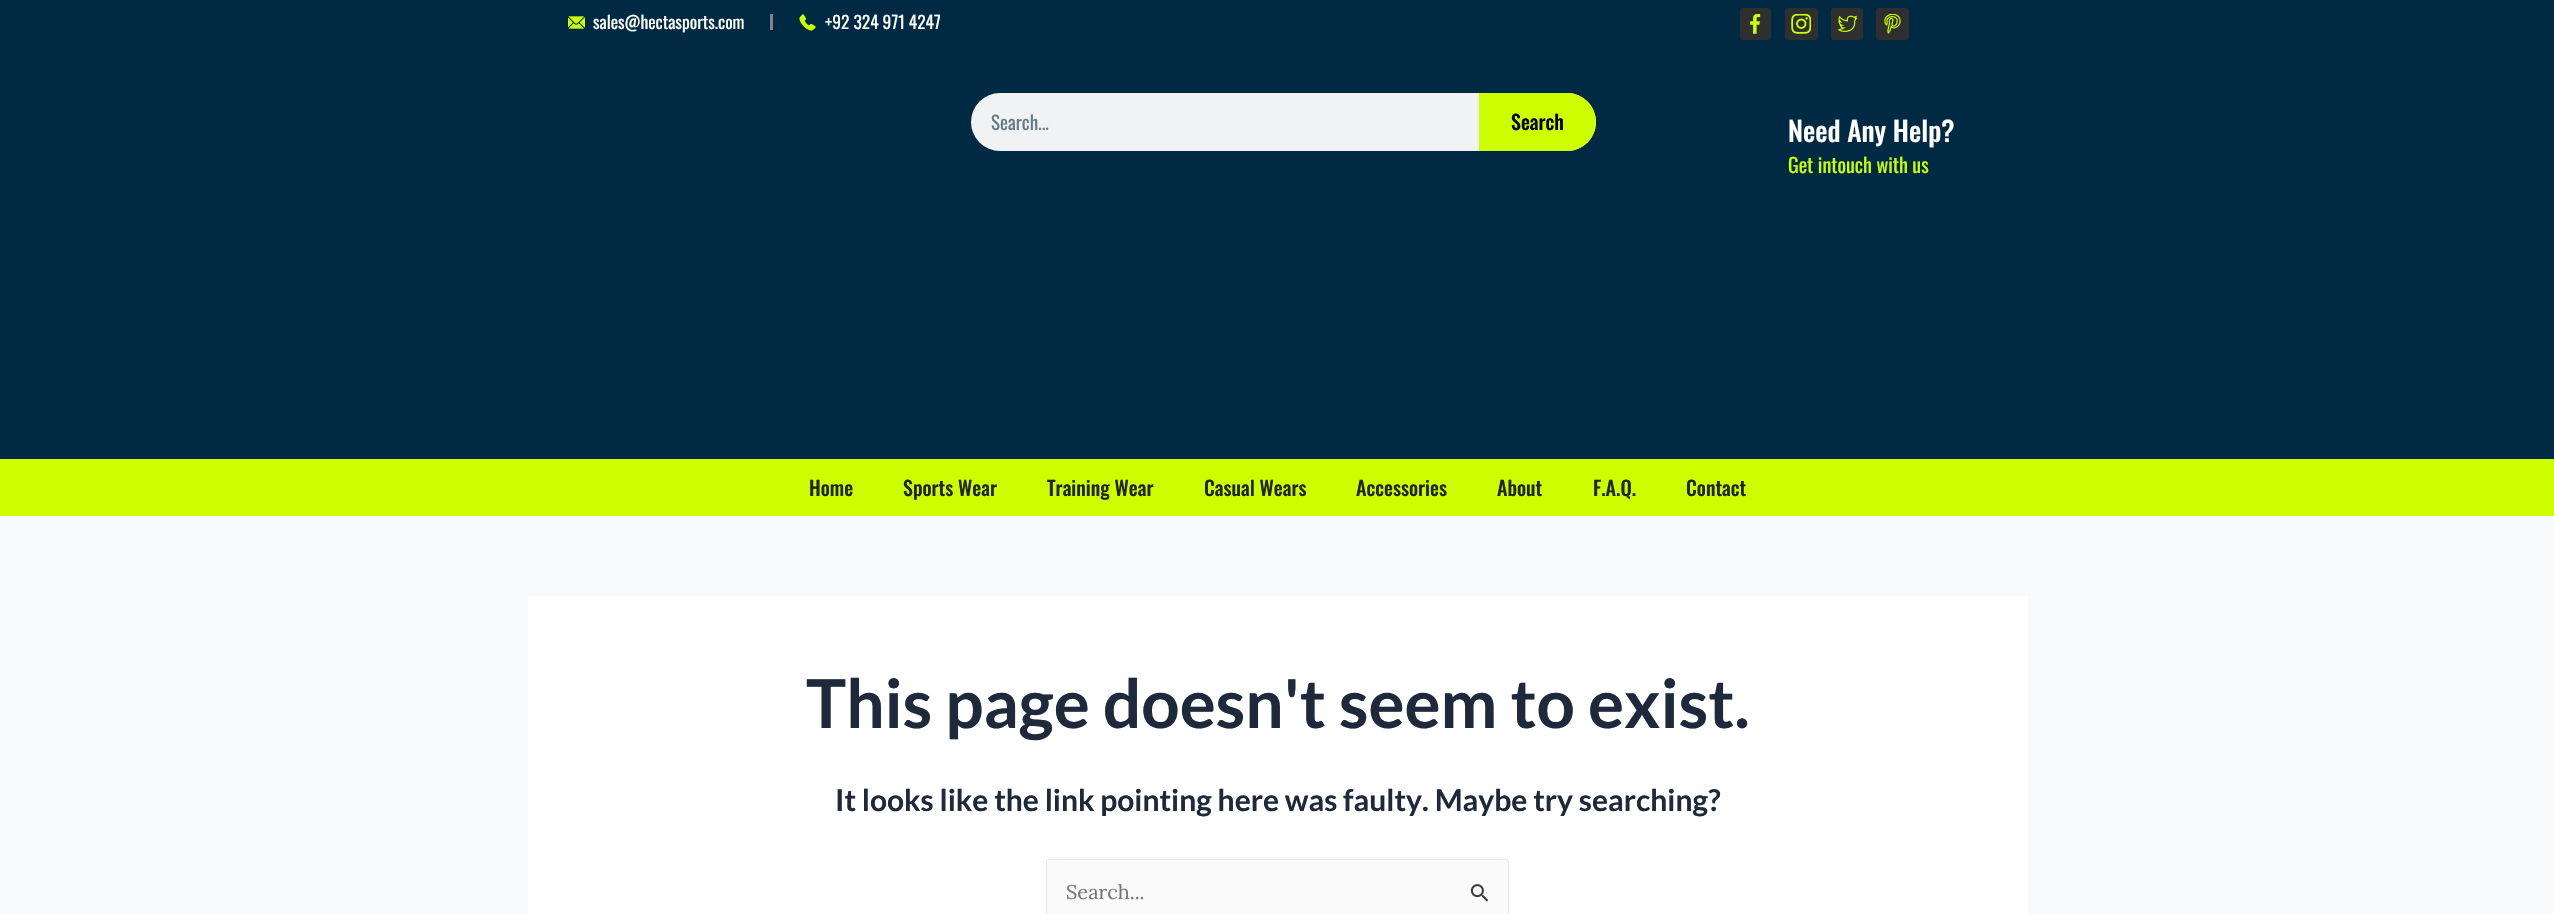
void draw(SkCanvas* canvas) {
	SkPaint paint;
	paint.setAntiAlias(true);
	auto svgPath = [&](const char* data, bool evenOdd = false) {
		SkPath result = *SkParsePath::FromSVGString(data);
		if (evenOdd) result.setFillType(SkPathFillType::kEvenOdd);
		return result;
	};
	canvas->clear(0xfff9fafb);
	paint.setColor(0xff002a43);
	canvas->drawRect(SkRect::MakeXYWH(0, 0, 2554, 459), paint);
	canvas->drawImageRect(SkImages::DeferredFromEncodedData(SkData::MakeFromFileName("img1.png")), SkRect::MakeXYWH(568, 16, 17, 13), SkSamplingOptions());
	SkFont f1(fontMgr->matchFamilyStyle("Oswald", SkFontStyle::Normal()), 17.5);
	f1.setSubpixel(true);
	paint.setColor(0xffffffff);
	canvas->drawString("sales@hectasports.com", 593, 29, f1, paint);
	paint.setColor(0xff838383);
	canvas->drawRect(SkRect::MakeXYWH(770, 14, 3, 16), paint);
	canvas->drawImageRect(SkImages::DeferredFromEncodedData(SkData::MakeFromFileName("img2.png")), SkRect::MakeXYWH(799, 14, 17, 17), SkSamplingOptions());
	paint.setColor(0xffffffff);
	canvas->drawString("+92 324 971 4247", 825, 29, f1, paint);
	paint.setColor(0xff2f2f2f);
	canvas->drawRoundRect(SkRect::MakeXYWH(1740, 8, 31, 32), 3, 3, paint);
	canvas->drawImageRect(SkImages::DeferredFromEncodedData(SkData::MakeFromFileName("img3.png")), SkRect::MakeXYWH(1750, 14, 11, 20), SkSamplingOptions());
	canvas->drawRoundRect(SkRect::MakeXYWH(1785, 8, 33, 32), 3, 3, paint);
	canvas->drawImageRect(SkImages::DeferredFromEncodedData(SkData::MakeFromFileName("img4.png")), SkRect::MakeXYWH(1791, 14, 20, 20), SkSamplingOptions());
	canvas->drawRoundRect(SkRect::MakeXYWH(1831, 8, 32, 32), 3, 3, paint);
	canvas->drawImageRect(SkImages::DeferredFromEncodedData(SkData::MakeFromFileName("img5.png")), SkRect::MakeXYWH(1838, 15, 20, 17), SkSamplingOptions());
	canvas->drawRoundRect(SkRect::MakeXYWH(1876, 8, 33, 32), 3, 3, paint);
	canvas->drawImageRect(SkImages::DeferredFromEncodedData(SkData::MakeFromFileName("img6.png")), SkRect::MakeXYWH(1884, 14, 17, 20), SkSamplingOptions());
	paint.setColor(0xfff1f2f3);
	canvas->drawRoundRect(SkRect::MakeXYWH(971, 93, 625, 58), 29, 29, paint);
	SkFont f2(fontMgr->matchFamilyStyle("Oswald", SkFontStyle::Normal()), 19);
	f2.setSubpixel(true);
	paint.setColor(0xff607a89);
	canvas->drawString("Search...", 991, 130, f2, paint);
	paint.setColor(0xffccff00);
	canvas->drawPath(svgPath("M1479 93H1567C1583 93 1596 106 1596 122C1596 138 1583 151 1567 151H1479Z"), paint);
	SkFont f3(fontMgr->matchFamilyStyle("Oswald", SkFontStyle(500, SkFontStyle::kNormal_Width, SkFontStyle::kUpright_Slant)), 20);
	f3.setSubpixel(true);
	paint.setColor(0xff000000);
	canvas->drawString("Search", 1511, 130, f3, paint);
	SkFont f4(fontMgr->matchFamilyStyle("Oswald", SkFontStyle(500, SkFontStyle::kNormal_Width, SkFontStyle::kUpright_Slant)), 27.5);
	f4.setSubpixel(true);
	paint.setColor(0xffffffff);
	canvas->drawString("Need Any Help?", 1788, 142, f4, paint);
	SkFont f5(fontMgr->matchFamilyStyle("Oswald", SkFontStyle::Normal()), 20);
	f5.setSubpixel(true);
	paint.setColor(0xffccff00);
	canvas->drawString("Get intouch with us", 1788, 173, f5, paint);
	canvas->drawRect(SkRect::MakeXYWH(0, 459, 2554, 57), paint);
	paint.setColor(0xff1f2600);
	canvas->drawString("Home", 809, 496, f3, paint);
	canvas->drawString("Sports Wear", 903, 496, f3, paint);
	canvas->drawString("Training Wear", 1047, 496, f3, paint);
	canvas->drawString("Casual Wears", 1204, 496, f3, paint);
	canvas->drawString("Accessories", 1356, 496, f3, paint);
	canvas->drawString("About", 1497, 496, f3, paint);
	canvas->drawString("F.A.Q.", 1593, 496, f3, paint);
	canvas->drawString("Contact", 1686, 496, f3, paint);
	paint.setColor(0xffffffff);
	canvas->drawRect(SkRect::MakeXYWH(528, 596, 1500, 318), paint);
	SkFont f6(fontMgr->matchFamilyStyle("Lato", SkFontStyle::Bold()), 67.5);
	f6.setSubpixel(true);
	paint.setColor(0xff1e293b);
	canvas->drawString("This page doesn't seem to exist.", 806, 728, f6, paint);
	SkFont f7(fontMgr->matchFamilyStyle("Lato", SkFontStyle::Bold()), 30);
	f7.setSubpixel(true);
	canvas->drawString("It looks like the link pointing here was faulty. Maybe try searching?", 835, 811, f7, paint);
	paint.setColor(0xfffafafa);
	canvas->drawRoundRect(SkRect::MakeXYWH(1046.5, 859.5, 462, 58), 2, 2, paint);
	paint.setStroke(true);
	paint.setStrokeWidth(1);
	paint.setColor(0xffe2e8f0);
	canvas->drawRoundRect(SkRect::MakeXYWH(1046.5, 859.5, 462, 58), 2, 2, paint);
	SkFont f8(fontMgr->matchFamilyStyle("Lora", SkFontStyle::Normal()), 20);
	f8.setSubpixel(true);
	paint.setStroke(false);
	paint.setColor(0xff757575);
	canvas->drawString("Search...", 1066, 899, f8, paint);
	canvas->drawImageRect(SkImages::DeferredFromEncodedData(SkData::MakeFromFileName("img7.png")), SkRect::MakeXYWH(1470, 884, 18, 18), SkSamplingOptions());
}
